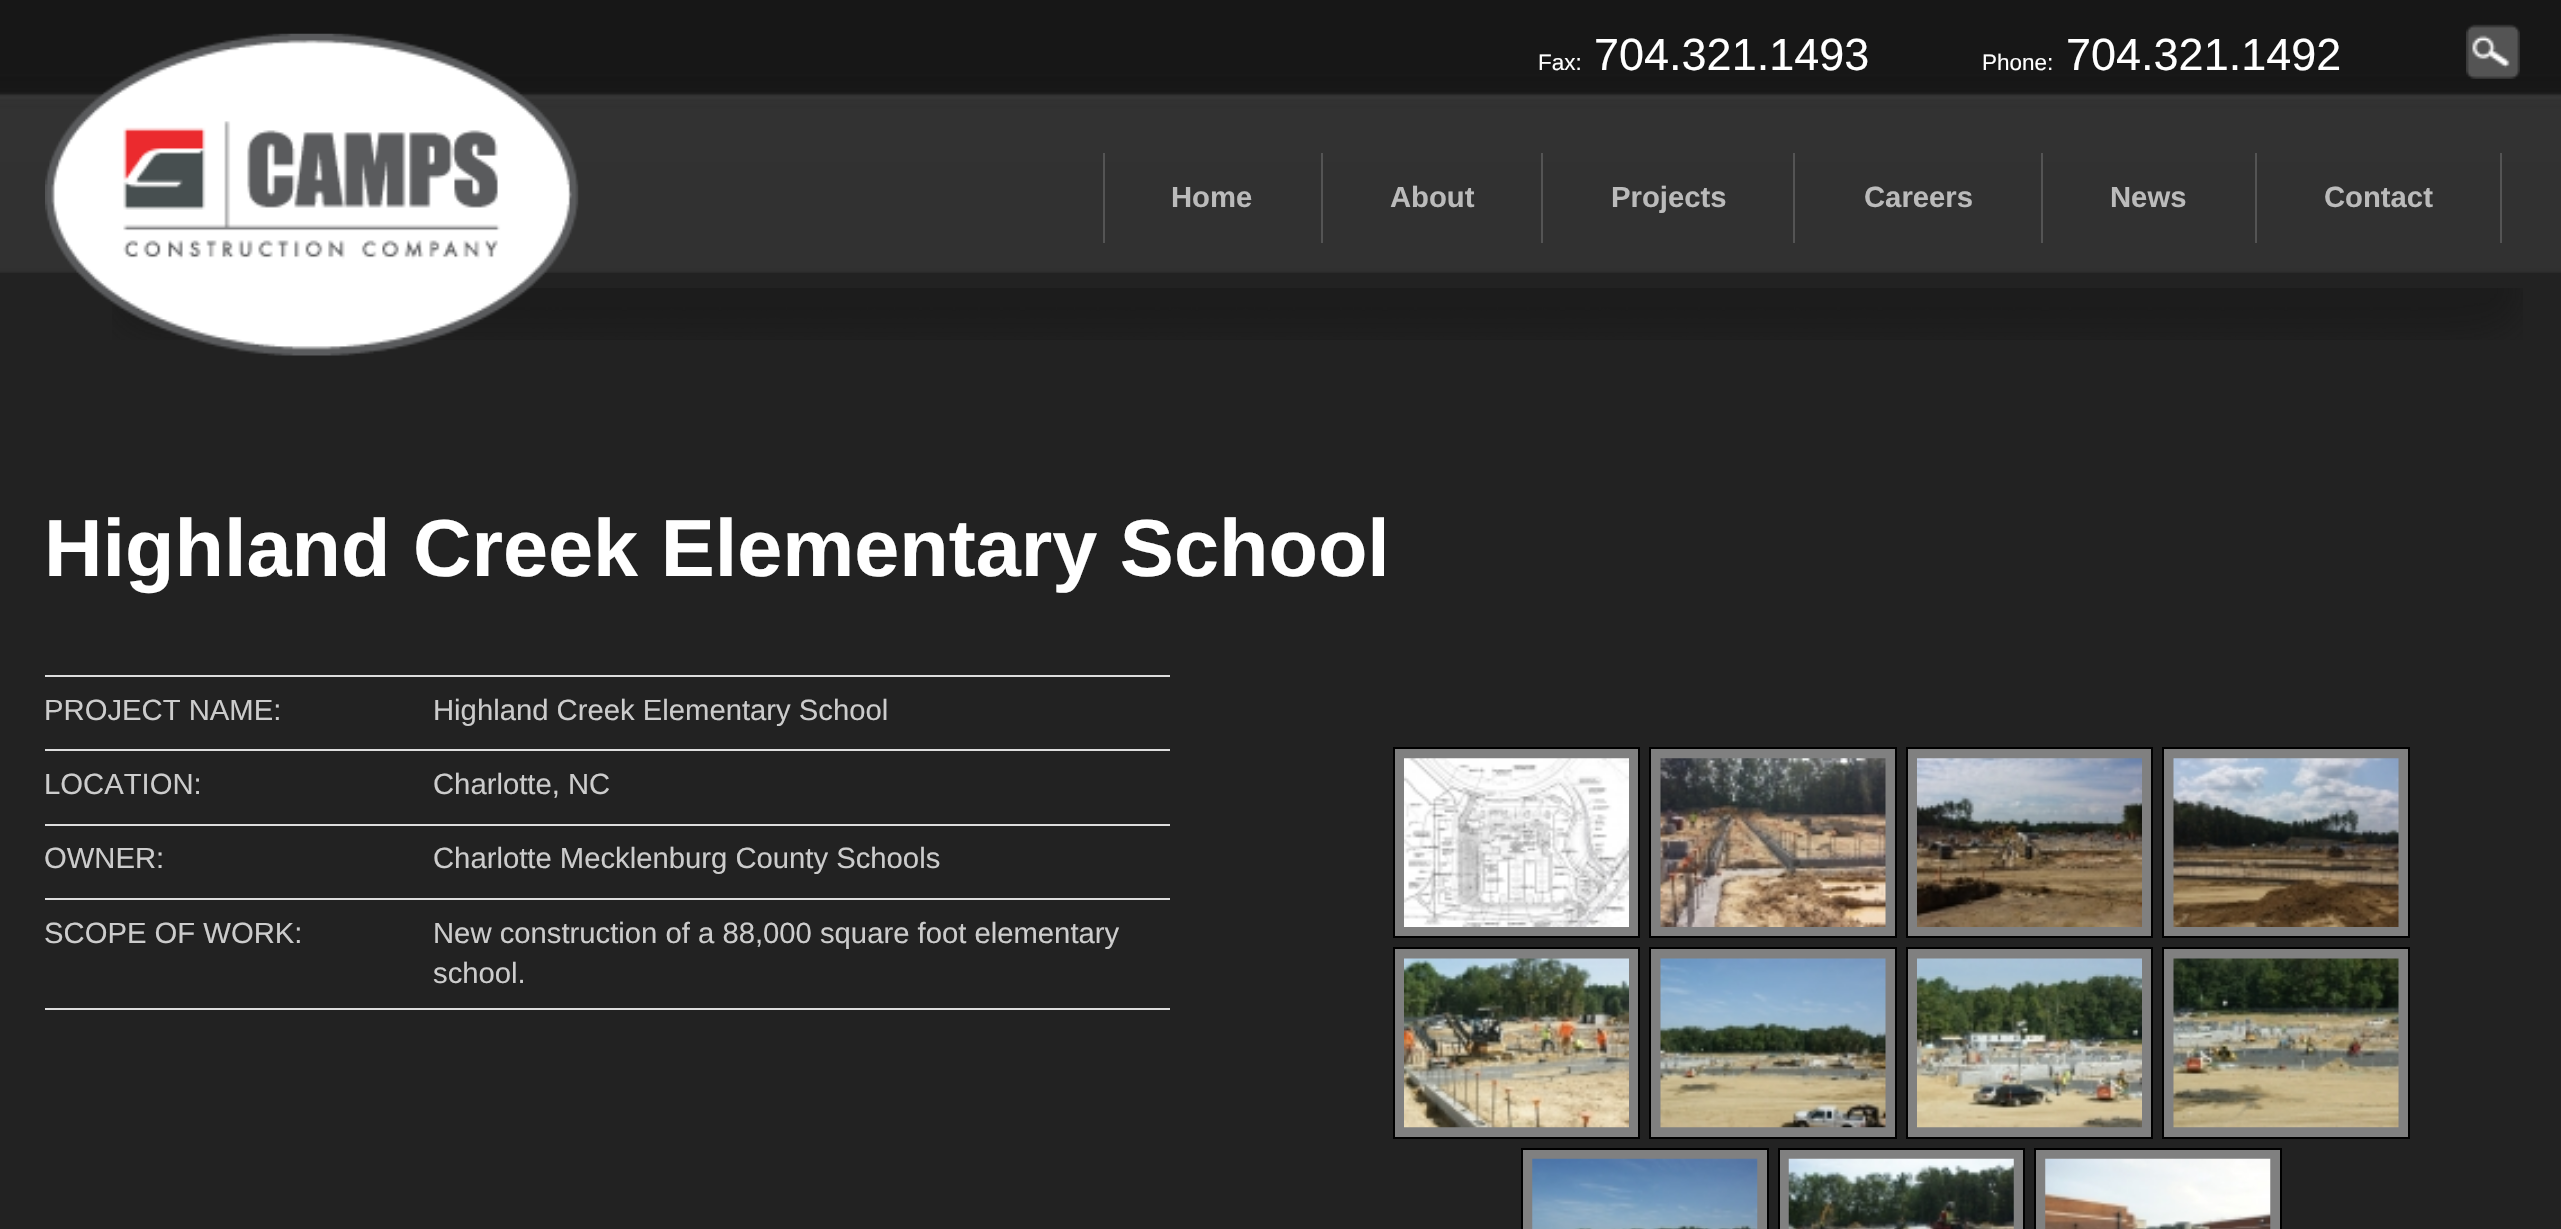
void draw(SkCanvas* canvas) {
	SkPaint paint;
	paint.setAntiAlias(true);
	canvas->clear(0xff222222);
	canvas->drawImageRect(SkImages::DeferredFromEncodedData(SkData::MakeFromFileName("img1.png")), SkRect::MakeXYWH(0, 0, 2561, 273), SkSamplingOptions());
	canvas->drawImageRect(SkImages::DeferredFromEncodedData(SkData::MakeFromFileName("img4.png")), SkRect::MakeXYWH(112, 288, 2411, 52), SkSamplingOptions());
	canvas->drawImageRect(SkImages::DeferredFromEncodedData(SkData::MakeFromFileName("img2.png")), SkRect::MakeXYWH(45, 33, 534, 323), SkSamplingOptions());
	SkFont f1(fontMgr->matchFamilyStyle("Liberation Sans", SkFontStyle::Normal()), 22.5);
	f1.setSubpixel(true);
	paint.setColor(0xffffffff);
	canvas->drawString("Fax:", 1538, 70, f1, paint);
	SkFont f2(fontMgr->matchFamilyStyle("Liberation Sans", SkFontStyle::Normal()), 45);
	f2.setSubpixel(true);
	canvas->drawString("704.321.1493", 1594, 70, f2, paint);
	canvas->drawString("Phone:", 1982, 70, f1, paint);
	canvas->drawString("704.321.1492", 2066, 70, f2, paint);
	canvas->drawImageRect(SkImages::DeferredFromEncodedData(SkData::MakeFromFileName("img3.png")), SkRect::MakeXYWH(2466, 24, 54, 55), SkSamplingOptions());
	paint.setColor(0xff545454);
	canvas->drawRect(SkRect::MakeXYWH(1321, 153, 2, 90), paint);
	canvas->drawRect(SkRect::MakeXYWH(1103, 153, 2, 90), paint);
	SkFont f3(fontMgr->matchFamilyStyle("Liberation Sans", SkFontStyle::Bold()), 29.25);
	f3.setSubpixel(true);
	paint.setColor(0xffbbbbbb);
	canvas->drawString("Home", 1171, 207, f3, paint);
	paint.setColor(0xff545454);
	canvas->drawRect(SkRect::MakeXYWH(1541, 153, 2, 90), paint);
	paint.setColor(0xffbbbbbb);
	canvas->drawString("About", 1390, 207, f3, paint);
	paint.setColor(0xff545454);
	canvas->drawRect(SkRect::MakeXYWH(1793, 153, 2, 90), paint);
	paint.setColor(0xffbbbbbb);
	canvas->drawString("Projects", 1611, 207, f3, paint);
	paint.setColor(0xff545454);
	canvas->drawRect(SkRect::MakeXYWH(2041, 153, 2, 90), paint);
	paint.setColor(0xffbbbbbb);
	canvas->drawString("Careers", 1864, 207, f3, paint);
	paint.setColor(0xff545454);
	canvas->drawRect(SkRect::MakeXYWH(2255, 153, 2, 90), paint);
	paint.setColor(0xffbbbbbb);
	canvas->drawString("News", 2110, 207, f3, paint);
	paint.setColor(0xff545454);
	canvas->drawRect(SkRect::MakeXYWH(2500, 153, 2, 90), paint);
	paint.setColor(0xffbbbbbb);
	canvas->drawString("Contact", 2324, 207, f3, paint);
	SkFont f4(fontMgr->matchFamilyStyle("Liberation Sans", SkFontStyle::Bold()), 81);
	f4.setSubpixel(true);
	paint.setColor(0xffffffff);
	canvas->drawString("Highland Creek Elementary School", 44, 576, f4, paint);
	paint.setColor(0xffdddddd);
	canvas->drawRect(SkRect::MakeXYWH(45, 1008, 1125, 2), paint);
	canvas->drawRect(SkRect::MakeXYWH(45, 675, 1125, 2), paint);
	SkFont f5(fontMgr->matchFamilyStyle("Liberation Sans", SkFontStyle::Normal()), 29.25);
	f5.setSubpixel(true);
	paint.setColor(0xffcccccc);
	canvas->drawString("PROJECT NAME:", 44, 720, f5, paint);
	canvas->drawString("Highland Creek Elementary School", 433, 720, f5, paint);
	paint.setColor(0xffdddddd);
	canvas->drawRect(SkRect::MakeXYWH(45, 749, 1125, 2), paint);
	paint.setColor(0xffcccccc);
	canvas->drawString("LOCATION:", 44, 794, f5, paint);
	canvas->drawString("Charlotte, NC", 433, 794, f5, paint);
	paint.setColor(0xffdddddd);
	canvas->drawRect(SkRect::MakeXYWH(45, 824, 1125, 2), paint);
	paint.setColor(0xffcccccc);
	canvas->drawString("OWNER:", 44, 868, f5, paint);
	canvas->drawString("Charlotte Mecklenburg County Schools", 433, 868, f5, paint);
	paint.setColor(0xffdddddd);
	canvas->drawRect(SkRect::MakeXYWH(45, 898, 1125, 2), paint);
	paint.setColor(0xffcccccc);
	canvas->drawString("SCOPE OF WORK:", 44, 943, f5, paint);
	canvas->drawString("New construction of a 88,000 square foot elementary", 433, 943, f5, paint);
	canvas->drawString("school.", 433, 983, f5, paint);
	paint.setColor(0xff808080);
	canvas->drawRect(SkRect::MakeXYWH(1394, 748, 245, 189), paint);
	paint.setStroke(true);
	paint.setStrokeWidth(2);
	paint.setColor(0xff000000);
	canvas->drawRect(SkRect::MakeXYWH(1394, 748, 245, 189), paint);
	canvas->drawImageRect(SkImages::DeferredFromEncodedData(SkData::MakeFromFileName("img5.png")), SkRect::MakeXYWH(1404, 758, 225, 169), SkSamplingOptions());
	paint.setStroke(false);
	paint.setColor(0xff808080);
	canvas->drawRect(SkRect::MakeXYWH(1650, 748, 246, 189), paint);
	paint.setStroke(true);
	paint.setColor(0xff000000);
	canvas->drawRect(SkRect::MakeXYWH(1650, 748, 246, 189), paint);
	canvas->drawImageRect(SkImages::DeferredFromEncodedData(SkData::MakeFromFileName("img6.png")), SkRect::MakeXYWH(1660, 758, 226, 169), SkSamplingOptions());
	paint.setStroke(false);
	paint.setColor(0xff808080);
	canvas->drawRect(SkRect::MakeXYWH(1907, 748, 245, 189), paint);
	paint.setStroke(true);
	paint.setColor(0xff000000);
	canvas->drawRect(SkRect::MakeXYWH(1907, 748, 245, 189), paint);
	canvas->drawImageRect(SkImages::DeferredFromEncodedData(SkData::MakeFromFileName("img7.png")), SkRect::MakeXYWH(1917, 758, 225, 169), SkSamplingOptions());
	paint.setStroke(false);
	paint.setColor(0xff808080);
	canvas->drawRect(SkRect::MakeXYWH(2163, 748, 246, 189), paint);
	paint.setStroke(true);
	paint.setColor(0xff000000);
	canvas->drawRect(SkRect::MakeXYWH(2163, 748, 246, 189), paint);
	canvas->drawImageRect(SkImages::DeferredFromEncodedData(SkData::MakeFromFileName("img8.png")), SkRect::MakeXYWH(2173, 758, 226, 169), SkSamplingOptions());
	paint.setStroke(false);
	paint.setColor(0xff808080);
	canvas->drawRect(SkRect::MakeXYWH(1394, 948, 245, 190), paint);
	paint.setStroke(true);
	paint.setColor(0xff000000);
	canvas->drawRect(SkRect::MakeXYWH(1394, 948, 245, 190), paint);
	canvas->drawImageRect(SkImages::DeferredFromEncodedData(SkData::MakeFromFileName("img9.png")), SkRect::MakeXYWH(1404, 958, 225, 170), SkSamplingOptions());
	paint.setStroke(false);
	paint.setColor(0xff808080);
	canvas->drawRect(SkRect::MakeXYWH(1650, 948, 246, 190), paint);
	paint.setStroke(true);
	paint.setColor(0xff000000);
	canvas->drawRect(SkRect::MakeXYWH(1650, 948, 246, 190), paint);
	canvas->drawImageRect(SkImages::DeferredFromEncodedData(SkData::MakeFromFileName("img10.png")), SkRect::MakeXYWH(1660, 958, 226, 170), SkSamplingOptions());
	paint.setStroke(false);
	paint.setColor(0xff808080);
	canvas->drawRect(SkRect::MakeXYWH(1907, 948, 245, 190), paint);
	paint.setStroke(true);
	paint.setColor(0xff000000);
	canvas->drawRect(SkRect::MakeXYWH(1907, 948, 245, 190), paint);
	canvas->drawImageRect(SkImages::DeferredFromEncodedData(SkData::MakeFromFileName("img11.png")), SkRect::MakeXYWH(1917, 958, 225, 170), SkSamplingOptions());
	paint.setStroke(false);
	paint.setColor(0xff808080);
	canvas->drawRect(SkRect::MakeXYWH(2163, 948, 246, 190), paint);
	paint.setStroke(true);
	paint.setColor(0xff000000);
	canvas->drawRect(SkRect::MakeXYWH(2163, 948, 246, 190), paint);
	canvas->drawImageRect(SkImages::DeferredFromEncodedData(SkData::MakeFromFileName("img12.png")), SkRect::MakeXYWH(2173, 958, 226, 170), SkSamplingOptions());
	paint.setStroke(false);
	paint.setColor(0xff808080);
	canvas->drawRect(SkRect::MakeXYWH(1522, 1149, 246, 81), paint);
	paint.setStroke(true);
	paint.setColor(0xff000000);
	canvas->drawRect(SkRect::MakeXYWH(1522, 1149, 246, 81), paint);
	canvas->drawImageRect(SkImages::DeferredFromEncodedData(SkData::MakeFromFileName("img13.png")), SkRect::MakeXYWH(1532, 1158, 226, 71), SkSamplingOptions());
	paint.setStroke(false);
	paint.setColor(0xff808080);
	canvas->drawRect(SkRect::MakeXYWH(1779, 1149, 245, 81), paint);
	paint.setStroke(true);
	paint.setColor(0xff000000);
	canvas->drawRect(SkRect::MakeXYWH(1779, 1149, 245, 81), paint);
	canvas->drawImageRect(SkImages::DeferredFromEncodedData(SkData::MakeFromFileName("img14.png")), SkRect::MakeXYWH(1788, 1158, 226, 71), SkSamplingOptions());
	paint.setStroke(false);
	paint.setColor(0xff808080);
	canvas->drawRect(SkRect::MakeXYWH(2035, 1149, 246, 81), paint);
	paint.setStroke(true);
	paint.setColor(0xff000000);
	canvas->drawRect(SkRect::MakeXYWH(2035, 1149, 246, 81), paint);
	canvas->drawImageRect(SkImages::DeferredFromEncodedData(SkData::MakeFromFileName("img15.png")), SkRect::MakeXYWH(2045, 1158, 226, 71), SkSamplingOptions());
}
